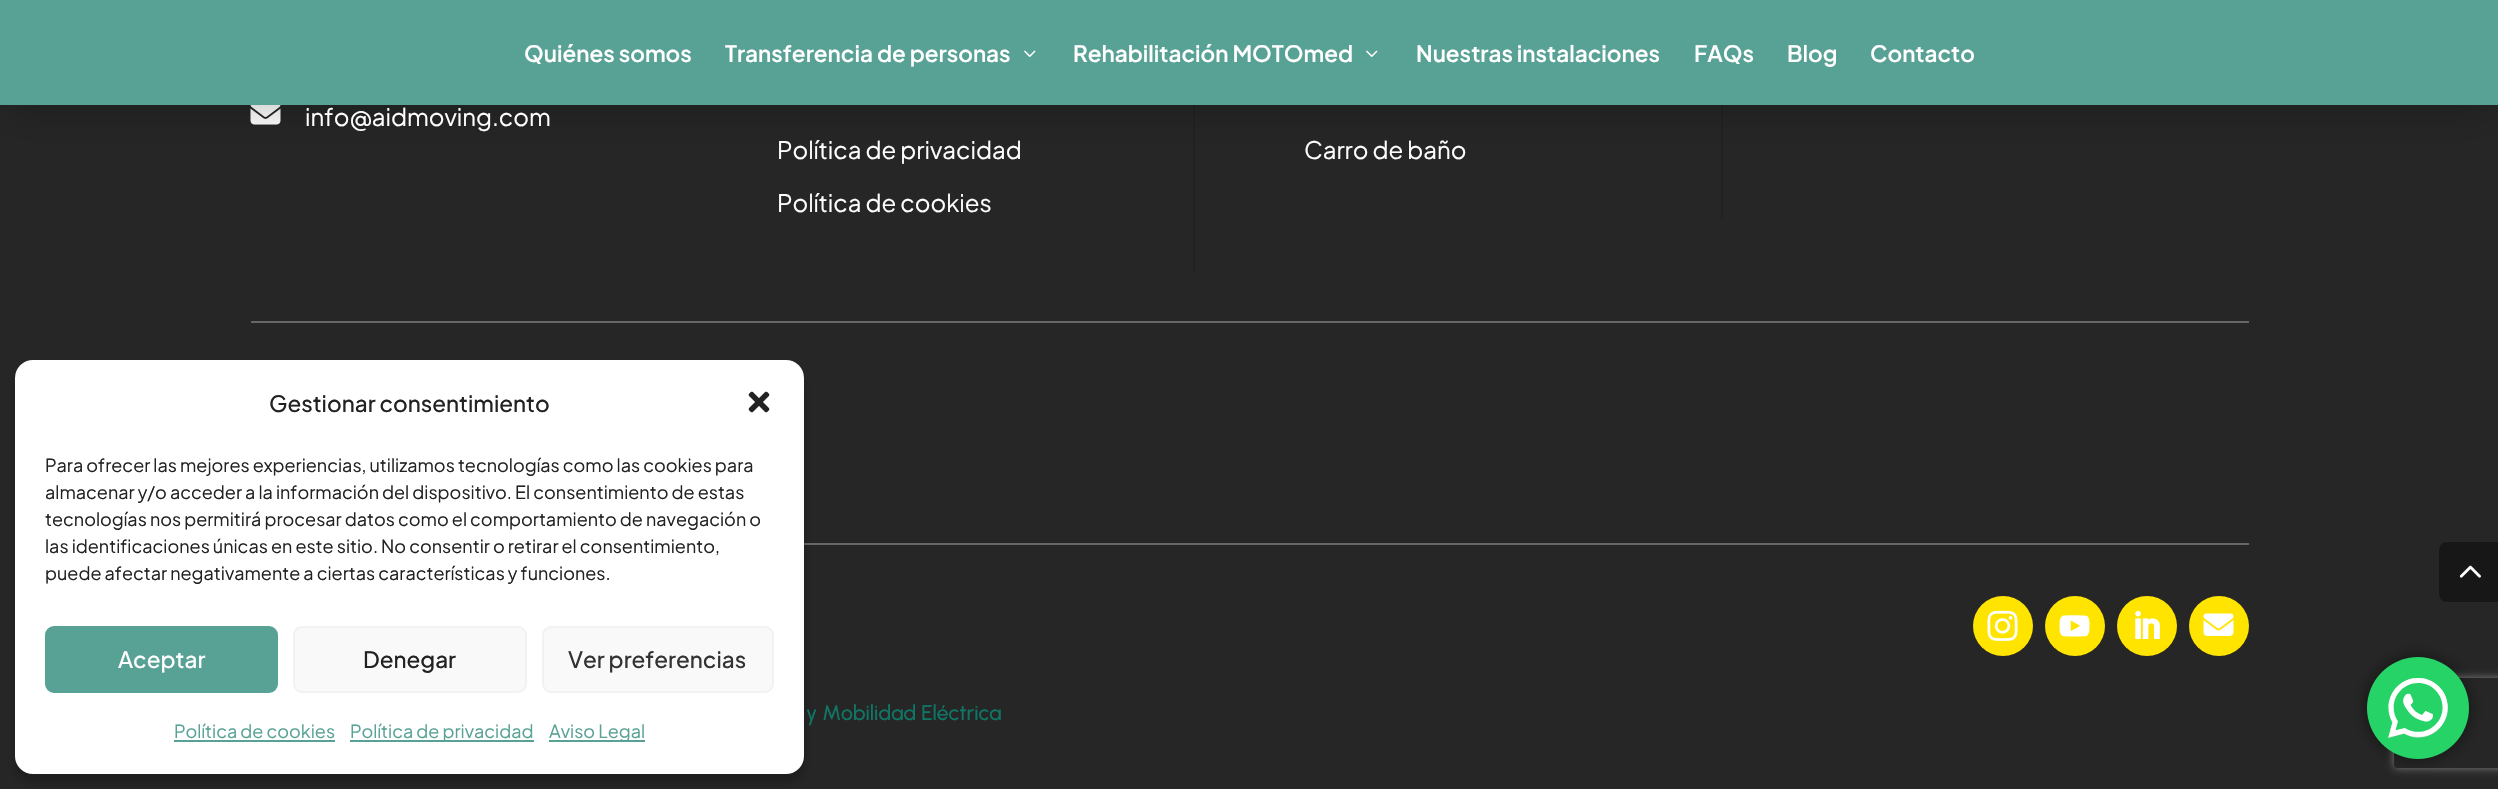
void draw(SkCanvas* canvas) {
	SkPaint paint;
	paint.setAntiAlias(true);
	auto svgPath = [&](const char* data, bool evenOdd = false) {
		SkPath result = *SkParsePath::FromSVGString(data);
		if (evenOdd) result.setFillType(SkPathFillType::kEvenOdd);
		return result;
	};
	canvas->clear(0xff262626);
	canvas->drawImageRect(SkImages::DeferredFromEncodedData(SkData::MakeFromFileName("img2.png")), SkRect::MakeXYWH(250, 105, 31, 20), SkSamplingOptions());
	paint.setColor(0xff222222);
	canvas->drawRect(SkRect::MakeXYWH(1193, 105, 2, 167), paint);
	canvas->drawRect(SkRect::MakeXYWH(1721, 105, 2, 114), paint);
	paint.setColor(0x33000000);
	paint.setMaskFilter(SkMaskFilter::MakeBlur(kNormal_SkBlurStyle, 19));
	canvas->drawRect(SkRect::MakeXYWH(9, 27, 2481, 87), paint);
	paint.setMaskFilter(nullptr);
	paint.setColor(0xff58a195);
	canvas->drawRect(SkRect::MakeXYWH(0, 0, 2498, 105), paint);
	SkFont f1(fontMgr->matchFamilyStyle("Plus Jakarta Sans", SkFontStyle(600, SkFontStyle::kNormal_Width, SkFontStyle::kUpright_Slant)), 22.5);
	f1.setSubpixel(true);
	paint.setColor(0xffffffff);
	canvas->drawString("Quiénes somos", 524, 62, f1, paint);
	canvas->drawString("Transferencia de personas", 725, 62, f1, paint);
	canvas->drawImageRect(SkImages::DeferredFromEncodedData(SkData::MakeFromFileName("img1.png")), SkRect::MakeXYWH(1024, 50, 12, 7), SkSamplingOptions());
	canvas->drawString("Rehabilitación MOTOmed", 1073, 62, f1, paint);
	canvas->drawImageRect(SkImages::DeferredFromEncodedData(SkData::MakeFromFileName("img1.png")), SkRect::MakeXYWH(1366, 50, 12, 7), SkSamplingOptions());
	canvas->drawString("Nuestras instalaciones", 1416, 62, f1, paint);
	canvas->drawString("FAQs", 1694, 62, f1, paint);
	canvas->drawString("Blog", 1787, 62, f1, paint);
	canvas->drawString("Contacto", 1870, 62, f1, paint);
	SkFont f2(fontMgr->matchFamilyStyle("Plus Jakarta Sans", SkFontStyle::Normal()), 24);
	f2.setSubpixel(true);
	canvas->drawString("info@aidmoving.com", 305, 126, f2, paint);
	canvas->drawString("Política de privacidad", 777, 159, f2, paint);
	canvas->drawString("Política de cookies", 777, 212, f2, paint);
	canvas->drawString("Carro de baño", 1304, 159, f2, paint);
	paint.setColor(0xff676767);
	canvas->drawRect(SkRect::MakeXYWH(251, 321, 1998, 2), paint);
	canvas->drawRect(SkRect::MakeXYWH(804, 543, 1445, 2), paint);
	paint.setColor(0xffffe400);
	canvas->drawCircle(2003, 626, 30, paint);
	canvas->drawImageRect(SkImages::DeferredFromEncodedData(SkData::MakeFromFileName("img3.png")), SkRect::MakeXYWH(1987, 610, 31, 31), SkSamplingOptions());
	canvas->drawCircle(2075, 626, 30, paint);
	canvas->drawImageRect(SkImages::DeferredFromEncodedData(SkData::MakeFromFileName("img4.png")), SkRect::MakeXYWH(2059, 615, 31, 22), SkSamplingOptions());
	canvas->drawCircle(2147, 626, 30, paint);
	canvas->drawImageRect(SkImages::DeferredFromEncodedData(SkData::MakeFromFileName("img5.png")), SkRect::MakeXYWH(2135, 610, 25, 29), SkSamplingOptions());
	canvas->drawCircle(2219, 626, 30, paint);
	canvas->drawImageRect(SkImages::DeferredFromEncodedData(SkData::MakeFromFileName("img6.png")), SkRect::MakeXYWH(2203, 613, 31, 23), SkSamplingOptions());
	SkFont f3(fontMgr->matchFamilyStyle("Urbanist", SkFontStyle(500, SkFontStyle::kNormal_Width, SkFontStyle::kUpright_Slant)), 21);
	f3.setSubpixel(true);
	paint.setColor(0xff0f7665);
	canvas->drawString("y Mobilidad Eléctrica", 806, 720, f3, paint);
	paint.setColor(0x3b000000);
	paint.setMaskFilter(SkMaskFilter::MakeBlur(kNormal_SkBlurStyle, 4.5));
	canvas->drawRoundRect(SkRect::MakeXYWH(15, 369, 789, 414), 18, 18, paint);
	paint.setMaskFilter(nullptr);
	paint.setColor(0xffffffff);
	canvas->drawRoundRect(SkRect::MakeXYWH(15, 360, 789, 414), 18, 18, paint);
	SkFont f4(fontMgr->matchFamilyStyle("Plus Jakarta Sans", SkFontStyle(500, SkFontStyle::kNormal_Width, SkFontStyle::kUpright_Slant)), 22.5);
	f4.setSubpixel(true);
	paint.setColor(0xff222222);
	canvas->drawString("Gestionar consentimiento", 269, 412, f4, paint);
	canvas->drawImageRect(SkImages::DeferredFromEncodedData(SkData::MakeFromFileName("img7.png")), SkRect::MakeXYWH(748, 391, 22, 22), SkSamplingOptions());
	SkFont f5(fontMgr->matchFamilyStyle("Plus Jakarta Sans", SkFontStyle::Normal()), 18);
	f5.setSubpixel(true);
	canvas->drawString("Para ofrecer las mejores experiencias, utilizamos tecnologías como las cookies para", 45, 472, f5, paint);
	canvas->drawString("almacenar y/o acceder a la información del dispositivo. El consentimiento de estas", 45, 499, f5, paint);
	canvas->drawString("tecnologías nos permitirá procesar datos como el comportamiento de navegación o", 45, 526, f5, paint);
	canvas->drawString("las identificaciones únicas en este sitio. No consentir o retirar el consentimiento,", 45, 553, f5, paint);
	canvas->drawString("puede afectar negativamente a ciertas características y funciones.", 45, 580, f5, paint);
	paint.setColor(0xff58a195);
	canvas->drawRoundRect(SkRect::MakeXYWH(46, 627, 231, 65), 8, 8, paint);
	paint.setStroke(true);
	paint.setStrokeWidth(2);
	canvas->drawRoundRect(SkRect::MakeXYWH(46, 627, 231, 65), 8, 8, paint);
	paint.setStroke(false);
	paint.setColor(0xffffffff);
	canvas->drawString("Aceptar", 118, 668, f4, paint);
	paint.setColor(0xfff9f9f9);
	canvas->drawRoundRect(SkRect::MakeXYWH(294, 627, 232, 65), 8, 8, paint);
	paint.setStroke(true);
	paint.setColor(0xfff2f2f2);
	canvas->drawRoundRect(SkRect::MakeXYWH(294, 627, 232, 65), 8, 8, paint);
	paint.setStroke(false);
	paint.setColor(0xff222222);
	canvas->drawString("Denegar", 363, 668, f4, paint);
	paint.setColor(0xfff9f9f9);
	canvas->drawRoundRect(SkRect::MakeXYWH(543, 627, 230, 65), 8, 8, paint);
	paint.setStroke(true);
	paint.setColor(0xfff2f2f2);
	canvas->drawRoundRect(SkRect::MakeXYWH(543, 627, 230, 65), 8, 8, paint);
	paint.setStroke(false);
	paint.setColor(0xff333333);
	canvas->drawString("Ver preferencias", 568, 668, f4, paint);
	paint.setColor(0xff58a195);
	canvas->drawString("Política de cookies", 174, 738, f5, paint);
	canvas->drawRect(SkRect::MakeXYWH(174, 740, 161, 2), paint);
	canvas->drawRect(SkRect::MakeXYWH(350, 740, 184, 2), paint);
	canvas->drawString("Política de privacidad", 350, 738, f5, paint);
	canvas->drawRect(SkRect::MakeXYWH(549, 740, 96, 2), paint);
	canvas->drawString("Aviso Legal", 549, 738, f5, paint);
	paint.setColor(0xff171717);
	canvas->drawPath(svgPath("M2447 542H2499V602H2447C2442.5 602 2439 598.5 2439 594V550C2439 545.5 2442.5 542 2447 542Z"), paint);
	canvas->drawImageRect(SkImages::DeferredFromEncodedData(SkData::MakeFromFileName("img8.png")), SkRect::MakeXYWH(2459, 565, 22, 13), SkSamplingOptions());
	paint.setColor(0x80000000);
	paint.setMaskFilter(SkMaskFilter::MakeBlur(kNormal_SkBlurStyle, 8));
	canvas->drawRoundRect(SkRect::MakeXYWH(2367, 657, 102, 102), 51, 51, paint);
	paint.setMaskFilter(nullptr);
	canvas->save();
	canvas->clipPath(svgPath("M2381 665H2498V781H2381ZM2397 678H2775C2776.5 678 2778 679.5 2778 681V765C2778 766.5 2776.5 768 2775 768H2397C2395.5 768 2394 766.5 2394 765V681C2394 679.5 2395.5 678 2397 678Z", true), true);
	paint.setColor(0xff808080);
	paint.setMaskFilter(SkMaskFilter::MakeBlur(kNormal_SkBlurStyle, 4));
	canvas->drawRoundRect(SkRect::MakeXYWH(2394, 678, 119, 90), 3, 3, paint);
	paint.setMaskFilter(nullptr);
	canvas->restore();
	paint.setColor(0xff25d366);
	canvas->drawCircle(2418, 708, 51, paint);
	canvas->drawImageRect(SkImages::DeferredFromEncodedData(SkData::MakeFromFileName("img9.png")), SkRect::MakeXYWH(2388, 678, 60, 60), SkSamplingOptions());
}
